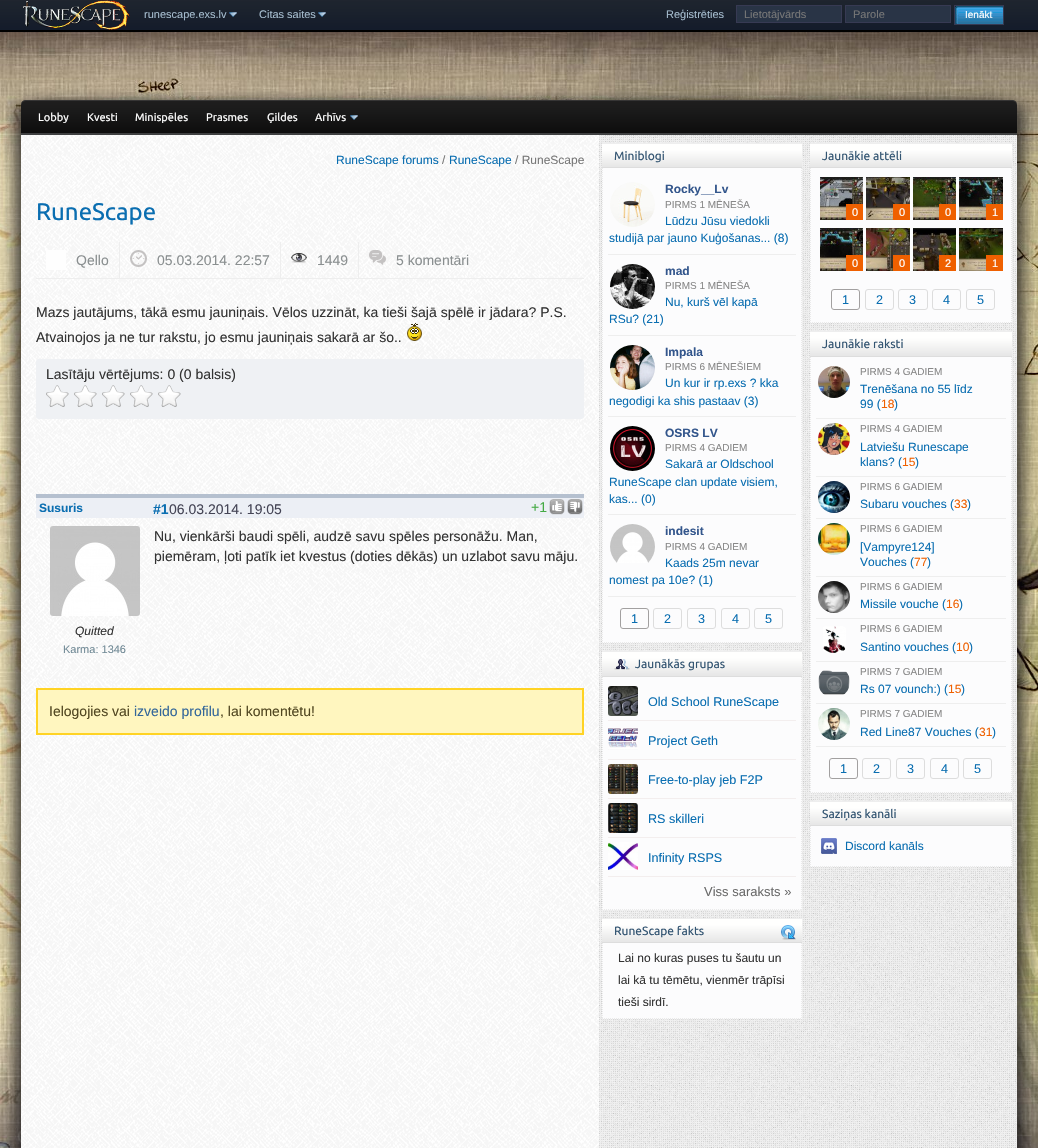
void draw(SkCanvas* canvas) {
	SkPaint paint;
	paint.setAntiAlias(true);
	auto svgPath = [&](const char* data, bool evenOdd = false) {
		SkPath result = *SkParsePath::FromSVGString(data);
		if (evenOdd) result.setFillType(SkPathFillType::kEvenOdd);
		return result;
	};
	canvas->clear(0xffffffff);
	canvas->drawImageRect(SkImages::DeferredFromEncodedData(SkData::MakeFromFileName("img1.png")), SkRect::MakeXYWH(0, 0, 1038, 1148), SkSamplingOptions());
	canvas->drawImageRect(SkImages::DeferredFromEncodedData(SkData::MakeFromFileName("img2.png")), SkRect::MakeXYWH(0, 0, 1038, 30), SkSamplingOptions());
	paint.setColor(0xff000000);
	canvas->drawRect(SkRect::MakeXYWH(0, 30, 1038, 2), paint);
	canvas->drawImageRect(SkImages::DeferredFromEncodedData(SkData::MakeFromFileName("img3.png")), SkRect::MakeXYWH(23, 0, 107, 30), SkSamplingOptions());
	SkFont f1(fontMgr->matchFamilyStyle("Liberation Sans", SkFontStyle::Normal()), 11);
	f1.setSubpixel(true);
	paint.setColor(0xffa5bcce);
	canvas->drawString("runescape.exs.lv", 144, 18, f1, paint);
	canvas->drawImageRect(SkImages::DeferredFromEncodedData(SkData::MakeFromFileName("img4.png")), SkRect::MakeXYWH(229, 12, 8, 5), SkSamplingOptions());
	canvas->drawString("Citas saites", 259, 18, f1, paint);
	canvas->drawImageRect(SkImages::DeferredFromEncodedData(SkData::MakeFromFileName("img4.png")), SkRect::MakeXYWH(318, 12, 8, 5), SkSamplingOptions());
	canvas->drawString("Reģistrēties", 666, 18, f1, paint);
	paint.setColor(0xff293446);
	canvas->drawRect(SkRect::MakeXYWH(736.5, 5.5, 105, 17), paint);
	paint.setStroke(true);
	paint.setStrokeWidth(1);
	paint.setColor(0xff373a53);
	canvas->drawRect(SkRect::MakeXYWH(736.5, 5.5, 105, 17), paint);
	paint.setStroke(false);
	paint.setColor(0xff777777);
	canvas->drawString("Lietotājvārds", 744, 18, f1, paint);
	paint.setColor(0xff293446);
	canvas->drawRect(SkRect::MakeXYWH(845.5, 5.5, 105, 17), paint);
	paint.setStroke(true);
	paint.setColor(0xff373a53);
	canvas->drawRect(SkRect::MakeXYWH(845.5, 5.5, 105, 17), paint);
	paint.setStroke(false);
	paint.setColor(0xff777777);
	canvas->drawString("Parole", 853, 18, f1, paint);
	canvas->drawImageRect(SkImages::DeferredFromEncodedData(SkData::MakeFromFileName("img5.png")), SkRect::MakeXYWH(955, 6, 48, 18), SkSamplingOptions());
	paint.setStroke(true);
	paint.setColor(0xff373a53);
	canvas->drawRect(SkRect::MakeXYWH(954.5, 5.5, 49, 19), paint);
	SkFont f2(fontMgr->matchFamilyStyle("Liberation Sans", SkFontStyle::Normal()), 10);
	f2.setSubpixel(true);
	paint.setStroke(false);
	paint.setColor(0xffffffff);
	canvas->drawString("Ienākt", 965, 18, f2, paint);
	paint.setColor(0x9906060e);
	paint.setMaskFilter(SkMaskFilter::MakeBlur(kNormal_SkBlurStyle, 7.5));
	canvas->drawRect(SkRect::MakeXYWH(13, 104, 988, 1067), paint);
	paint.setMaskFilter(nullptr);
	paint.setMaskFilter(SkMaskFilter::MakeBlur(kNormal_SkBlurStyle, 7.5));
	canvas->drawRect(SkRect::MakeXYWH(37, 104, 988, 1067), paint);
	paint.setMaskFilter(nullptr);
	paint.setMaskFilter(SkMaskFilter::MakeBlur(kNormal_SkBlurStyle, 7.5));
	canvas->drawRect(SkRect::MakeXYWH(25, 113, 988, 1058), paint);
	paint.setMaskFilter(nullptr);
	canvas->drawImageRect(SkImages::DeferredFromEncodedData(SkData::MakeFromFileName("img6.png")), SkRect::MakeXYWH(21, 101, 996, 32), SkSamplingOptions());
	paint.setColor(0xff363535);
	canvas->drawPath(svgPath("M26 100C23 100 21 102 21 105C21 103 23 101 26 101H1012C1015 101 1017 103 1017 105C1017 102 1015 100 1012 100Z"), paint);
	paint.setColor(0xff3f4041);
	canvas->drawRect(SkRect::MakeXYWH(21, 133, 996, 2), paint);
	SkFont f3(fontMgr->matchFamilyStyle("Ubuntu", SkFontStyle::Normal()), 11);
	f3.setSubpixel(true);
	paint.setColor(0xffffffff);
	canvas->drawString("Lobby", 38, 121, f3, paint);
	canvas->drawString("Kvesti", 87, 121, f3, paint);
	canvas->drawString("Minispēles", 135, 121, f3, paint);
	canvas->drawString("Prasmes", 206, 121, f3, paint);
	canvas->drawString("Ģildes", 267, 121, f3, paint);
	canvas->drawString("Arhīvs", 315, 121, f3, paint);
	canvas->drawImageRect(SkImages::DeferredFromEncodedData(SkData::MakeFromFileName("img7.png")), SkRect::MakeXYWH(350, 115, 8, 5), SkSamplingOptions());
	canvas->drawImageRect(SkImages::DeferredFromEncodedData(SkData::MakeFromFileName("img8.png")), SkRect::MakeXYWH(599, 135, 418, 1013), SkSamplingOptions());
	canvas->drawImageRect(SkImages::DeferredFromEncodedData(SkData::MakeFromFileName("img9.png")), SkRect::MakeXYWH(21, 135, 578, 1013), SkSamplingOptions());
	SkFont f4(fontMgr->matchFamilyStyle("Liberation Sans", SkFontStyle::Normal()), 12);
	f4.setSubpixel(true);
	paint.setColor(0xff0a6eb1);
	canvas->drawString("RuneScape forums", 336, 164, f4, paint);
	paint.setColor(0xff777777);
	canvas->drawString("/", 442, 164, f4, paint);
	paint.setColor(0xff0a6eb1);
	canvas->drawString("RuneScape", 449, 164, f4, paint);
	paint.setColor(0xff777777);
	canvas->drawString("/ RuneScape", 515, 164, f4, paint);
	SkFont f5(fontMgr->matchFamilyStyle("Ubuntu", SkFontStyle::Normal()), 24);
	f5.setSubpixel(true);
	paint.setColor(0xff0a6eb1);
	canvas->drawString("RuneScape", 36, 220, f5, paint);
	paint.setColor(0xffeeeeee);
	canvas->drawRect(SkRect::MakeXYWH(36, 278, 548, 1), paint);
	canvas->drawRect(SkRect::MakeXYWH(119, 242, 1, 36), paint);
	paint.setColor(0xfffefefe);
	canvas->drawRect(SkRect::MakeXYWH(46, 250, 20, 20), paint);
	SkFont f6(fontMgr->matchFamilyStyle("Liberation Sans", SkFontStyle::Normal()), 14);
	f6.setSubpixel(true);
	paint.setColor(0xff8a8f90);
	canvas->drawString("Qello", 76, 265, f6, paint);
	paint.setColor(0xffeeeeee);
	canvas->drawRect(SkRect::MakeXYWH(280, 242, 1, 36), paint);
	canvas->drawImageRect(SkImages::DeferredFromEncodedData(SkData::MakeFromFileName("img10.png")), SkRect::MakeXYWH(130, 250, 17, 17), SkSamplingOptions());
	paint.setColor(0xff8a8f90);
	canvas->drawString("05.03.2014. 22:57", 157, 265, f6, paint);
	paint.setColor(0xffeeeeee);
	canvas->drawRect(SkRect::MakeXYWH(358, 242, 1, 36), paint);
	canvas->drawImageRect(SkImages::DeferredFromEncodedData(SkData::MakeFromFileName("img11.png")), SkRect::MakeXYWH(291, 253, 16, 10), SkSamplingOptions());
	paint.setColor(0xff8a8f90);
	canvas->drawString("1449", 317, 265, f6, paint);
	canvas->drawImageRect(SkImages::DeferredFromEncodedData(SkData::MakeFromFileName("img12.png")), SkRect::MakeXYWH(369, 250, 17, 15), SkSamplingOptions());
	canvas->drawString("5 komentāri", 396, 265, f6, paint);
	paint.setColor(0xff333333);
	canvas->drawString("Mazs jautājums, tākā esmu jauniņais. Vēlos uzzināt, ka tieši šajā spēlē ir jādara? P.S.", 36, 317, f6, paint);
	canvas->drawString("Atvainojos ja ne tur rakstu, jo esmu jauniņais sakarā ar šo..", 36, 342, f6, paint);
	canvas->drawImageRect(SkImages::DeferredFromEncodedData(SkData::MakeFromFileName("img13.png")), SkRect::MakeXYWH(407, 323, 15, 18), SkSamplingOptions());
	paint.setColor(0xffeff1f4);
	canvas->drawRoundRect(SkRect::MakeXYWH(36, 359, 548, 60), 3, 3, paint);
	paint.setColor(0xff333333);
	canvas->drawString("Lasītāju vērtējums: 0 (0 balsis)", 46, 379, f6, paint);
	canvas->drawImageRect(SkImages::DeferredFromEncodedData(SkData::MakeFromFileName("img14.png")), SkRect::MakeXYWH(46, 385, 23, 22), SkSamplingOptions());
	canvas->drawImageRect(SkImages::DeferredFromEncodedData(SkData::MakeFromFileName("img14.png")), SkRect::MakeXYWH(74, 385, 23, 22), SkSamplingOptions());
	canvas->drawImageRect(SkImages::DeferredFromEncodedData(SkData::MakeFromFileName("img14.png")), SkRect::MakeXYWH(102, 385, 23, 22), SkSamplingOptions());
	canvas->drawImageRect(SkImages::DeferredFromEncodedData(SkData::MakeFromFileName("img14.png")), SkRect::MakeXYWH(130, 385, 23, 22), SkSamplingOptions());
	canvas->drawImageRect(SkImages::DeferredFromEncodedData(SkData::MakeFromFileName("img14.png")), SkRect::MakeXYWH(158, 385, 23, 22), SkSamplingOptions());
	paint.setColor(0xffeceff5);
	canvas->drawRect(SkRect::MakeXYWH(36, 498, 548, 20), paint);
	SkFont f7(fontMgr->matchFamilyStyle("Liberation Sans", SkFontStyle::Bold()), 12);
	f7.setSubpixel(true);
	paint.setColor(0xff0a6eb1);
	canvas->drawString("Susuris", 39, 512, f7, paint);
	canvas->drawImageRect(SkImages::DeferredFromEncodedData(SkData::MakeFromFileName("img15.png")), SkRect::MakeXYWH(50, 526, 90, 90), SkSamplingOptions());
	SkFont f8(fontMgr->matchFamilyStyle("Liberation Sans", SkFontStyle::Italic()), 12);
	f8.setSubpixel(true);
	paint.setColor(0xff333333);
	canvas->drawString("Quitted", 75, 635, f8, paint);
	paint.setColor(0xff718a96);
	canvas->drawString("Karma: 1346", 63, 653, f1, paint);
	paint.setColor(0xffb5c0cf);
	canvas->drawRect(SkRect::MakeXYWH(36, 494, 548, 4), paint);
	SkFont f9(fontMgr->matchFamilyStyle("Liberation Sans", SkFontStyle::Bold()), 14);
	f9.setSubpixel(true);
	paint.setColor(0xff0a6eb1);
	canvas->drawString("#1", 153, 514, f9, paint);
	paint.setColor(0xff444455);
	canvas->drawString("06.03.2014. 19:05", 169, 514, f6, paint);
	paint.setColor(0xff44aa44);
	canvas->drawString("+1", 531, 512, f6, paint);
	canvas->drawImageRect(SkImages::DeferredFromEncodedData(SkData::MakeFromFileName("img16.png")), SkRect::MakeXYWH(549, 499, 16, 16), SkSamplingOptions());
	canvas->drawImageRect(SkImages::DeferredFromEncodedData(SkData::MakeFromFileName("img17.png")), SkRect::MakeXYWH(567, 499, 16, 16), SkSamplingOptions());
	paint.setColor(0xff333333);
	canvas->drawString("Nu, vienkārši baudi spēli, audzē savu spēles personāžu. Man,", 154, 541, f6, paint);
	canvas->drawString("piemēram, ļoti patīk iet kvestus (doties dēkās) un uzlabot savu māju.", 154, 561, f6, paint);
	paint.setColor(0xfffff6bf);
	canvas->drawRect(SkRect::MakeXYWH(37, 689, 546, 45), paint);
	paint.setStroke(true);
	paint.setStrokeWidth(2);
	paint.setColor(0xffffd324);
	canvas->drawRect(SkRect::MakeXYWH(37, 689, 546, 45), paint);
	paint.setStroke(false);
	paint.setColor(0xff514721);
	canvas->drawString("Ielogojies vai", 49, 716, f6, paint);
	paint.setColor(0xff336699);
	canvas->drawString("izveido profilu", 134, 716, f6, paint);
	paint.setColor(0xff514721);
	canvas->drawString(", lai komentētu!", 220, 716, f6, paint);
	{
		const SkColor colors[] = {0xfffffffe, 0xfffffffe, 0xffe6e6e6};
		const float stops[] = {0, 0.25, 1};
		const SkPoint ends[] = {{702, 144}, {702, 167}};
		paint.setShader(SkGradientShader::MakeLinear(ends, colors, stops, 3, SkTileMode::kClamp));
		paint.setAlpha(255);
	}
	canvas->drawRect(SkRect::MakeXYWH(602, 144, 200, 23), paint);
	paint.setShader(nullptr);
	paint.setColor(0xffeeeeee);
	canvas->drawRect(SkRect::MakeXYWH(602, 143, 200, 1), paint);
	paint.setColor(0xffdddddd);
	canvas->drawRect(SkRect::MakeXYWH(602, 167, 200, 1), paint);
	SkFont f10(fontMgr->matchFamilyStyle("Ubuntu", SkFontStyle::Normal()), 12);
	f10.setSubpixel(true);
	paint.setColor(0xff335572);
	canvas->drawString("Miniblogi", 614, 160, f10, paint);
	paint.setColor(0xfffcfcfd);
	canvas->drawRect(SkRect::MakeXYWH(602, 168, 200, 475), paint);
	paint.setStroke(true);
	paint.setStrokeWidth(1);
	paint.setColor(0xffeaeaea);
	paint.setPathEffect(SkDashPathEffect::Make({{1, 1}}, 0));
	canvas->drawPath(svgPath("M801.5 168V643"), paint);
	paint.setPathEffect(nullptr);
	paint.setPathEffect(SkDashPathEffect::Make({{1, 1}}, 0));
	canvas->drawPath(svgPath("M602 642.5H802"), paint);
	paint.setPathEffect(nullptr);
	paint.setPathEffect(SkDashPathEffect::Make({{1, 1}}, 0));
	canvas->drawPath(svgPath("M602.5 168V643"), paint);
	paint.setPathEffect(nullptr);
	paint.setStroke(false);
	paint.setColor(0xffeeeeee);
	canvas->drawRect(SkRect::MakeXYWH(608, 254, 188, 1), paint);
	canvas->drawImageRect(SkImages::DeferredFromEncodedData(SkData::MakeFromFileName("img18.png")), SkRect::MakeXYWH(610, 182, 45, 45), SkSamplingOptions());
	paint.setColor(0xff33568c);
	canvas->drawString("Rocky__Lv", 665, 193, f7, paint);
	paint.setColor(0xff888888);
	canvas->drawString("PIRMS 1 MĒNEŠA", 665, 208, f2, paint);
	paint.setColor(0xff0a6eb1);
	canvas->drawString("Lūdzu Jūsu viedokli", 665, 225, f4, paint);
	canvas->drawString("studijā par jauno Kuģošanas... (8)", 609, 242, f4, paint);
	paint.setColor(0xffeeeeee);
	canvas->drawRect(SkRect::MakeXYWH(608, 335, 188, 1), paint);
	canvas->drawImageRect(SkImages::DeferredFromEncodedData(SkData::MakeFromFileName("img19.png")), SkRect::MakeXYWH(610, 264, 45, 45), SkSamplingOptions());
	paint.setColor(0xff33568c);
	canvas->drawString("mad", 665, 275, f7, paint);
	paint.setColor(0xff888888);
	canvas->drawString("PIRMS 1 MĒNEŠA", 665, 289, f2, paint);
	paint.setColor(0xff0a6eb1);
	canvas->drawString("Nu, kurš vēl kapā", 665, 306, f4, paint);
	canvas->drawString("RSu? (21)", 609, 323, f4, paint);
	paint.setColor(0xffeeeeee);
	canvas->drawRect(SkRect::MakeXYWH(608, 416, 188, 1), paint);
	canvas->drawImageRect(SkImages::DeferredFromEncodedData(SkData::MakeFromFileName("img20.png")), SkRect::MakeXYWH(610, 345, 45, 45), SkSamplingOptions());
	paint.setColor(0xff33568c);
	canvas->drawString("Impala", 665, 356, f7, paint);
	paint.setColor(0xff888888);
	canvas->drawString("PIRMS 6 MĒNEŠIEM", 665, 370, f2, paint);
	paint.setColor(0xff0a6eb1);
	canvas->drawString("Un kur ir rp.exs ? kka", 665, 387, f4, paint);
	canvas->drawString("negodigi ka shis pastaav (3)", 609, 405, f4, paint);
	paint.setColor(0xffeeeeee);
	canvas->drawRect(SkRect::MakeXYWH(608, 514, 188, 1), paint);
	canvas->drawImageRect(SkImages::DeferredFromEncodedData(SkData::MakeFromFileName("img21.png")), SkRect::MakeXYWH(610, 426, 45, 45), SkSamplingOptions());
	paint.setColor(0xff33568c);
	canvas->drawString("OSRS LV", 665, 437, f7, paint);
	paint.setColor(0xff888888);
	canvas->drawString("PIRMS 4 GADIEM", 665, 451, f2, paint);
	paint.setColor(0xff0a6eb1);
	canvas->drawString("Sakarā ar Oldschool", 665, 468, f4, paint);
	canvas->drawString("RuneScape clan update visiem,", 609, 486, f4, paint);
	canvas->drawString("kas... (0)", 609, 503, f4, paint);
	paint.setColor(0xffeeeeee);
	canvas->drawRect(SkRect::MakeXYWH(608, 596, 188, 1), paint);
	canvas->drawImageRect(SkImages::DeferredFromEncodedData(SkData::MakeFromFileName("img22.png")), SkRect::MakeXYWH(610, 524, 45, 39), SkSamplingOptions());
	paint.setColor(0xff33568c);
	canvas->drawString("indesit", 665, 535, f7, paint);
	paint.setColor(0xff888888);
	canvas->drawString("PIRMS 4 GADIEM", 665, 550, f2, paint);
	paint.setColor(0xff0a6eb1);
	canvas->drawString("Kaads 25m nevar", 665, 567, f4, paint);
	canvas->drawString("nomest pa 10e? (1)", 609, 584, f4, paint);
	paint.setStroke(true);
	paint.setColor(0xffa2a0a0);
	canvas->drawRoundRect(SkRect::MakeXYWH(620.5, 608.5, 28, 20), 2.5, 2.5, paint);
	SkFont f11(fontMgr->matchFamilyStyle("Liberation Sans", SkFontStyle::Normal()), 12.6);
	f11.setSubpixel(true);
	paint.setStroke(false);
	paint.setColor(0xff0a6eb1);
	canvas->drawString("1", 631, 623, f11, paint);
	paint.setStroke(true);
	paint.setColor(0xffdddddd);
	canvas->drawRoundRect(SkRect::MakeXYWH(653.5, 608.5, 28, 20), 2.5, 2.5, paint);
	paint.setStroke(false);
	paint.setColor(0xff0a6eb1);
	canvas->drawString("2", 664, 623, f11, paint);
	paint.setStroke(true);
	paint.setColor(0xffdddddd);
	canvas->drawRoundRect(SkRect::MakeXYWH(687.5, 608.5, 28, 20), 2.5, 2.5, paint);
	paint.setStroke(false);
	paint.setColor(0xff0a6eb1);
	canvas->drawString("3", 698, 623, f11, paint);
	paint.setStroke(true);
	paint.setColor(0xffdddddd);
	canvas->drawRoundRect(SkRect::MakeXYWH(721.5, 608.5, 28, 20), 2.5, 2.5, paint);
	paint.setStroke(false);
	paint.setColor(0xff0a6eb1);
	canvas->drawString("4", 732, 623, f11, paint);
	paint.setStroke(true);
	paint.setColor(0xffdddddd);
	canvas->drawRoundRect(SkRect::MakeXYWH(754.5, 608.5, 28, 20), 2.5, 2.5, paint);
	paint.setStroke(false);
	paint.setColor(0xff0a6eb1);
	canvas->drawString("5", 765, 623, f11, paint);
	{
		const SkColor colors[] = {0xfffffffe, 0xfffffffe, 0xffe6e6e6};
		const float stops[] = {0, 0.25, 1};
		const SkPoint ends[] = {{702, 652}, {702, 676}};
		paint.setShader(SkGradientShader::MakeLinear(ends, colors, stops, 3, SkTileMode::kClamp));
		paint.setAlpha(255);
	}
	canvas->drawRect(SkRect::MakeXYWH(602, 652, 200, 24), paint);
	paint.setShader(nullptr);
	paint.setColor(0xffeeeeee);
	canvas->drawRect(SkRect::MakeXYWH(602, 651, 200, 1), paint);
	paint.setColor(0xffdddddd);
	canvas->drawRect(SkRect::MakeXYWH(602, 676, 200, 1), paint);
	canvas->drawImageRect(SkImages::DeferredFromEncodedData(SkData::MakeFromFileName("img23.png")), SkRect::MakeXYWH(614, 659, 16, 11), SkSamplingOptions());
	paint.setColor(0xff335572);
	canvas->drawString("Jaunākās grupas", 635, 668, f10, paint);
	paint.setColor(0xfffcfcfd);
	canvas->drawRect(SkRect::MakeXYWH(602, 677, 200, 233), paint);
	paint.setStroke(true);
	paint.setColor(0xffeaeaea);
	paint.setPathEffect(SkDashPathEffect::Make({{1, 1}}, 0));
	canvas->drawPath(svgPath("M801.5 677V910"), paint);
	paint.setPathEffect(nullptr);
	paint.setPathEffect(SkDashPathEffect::Make({{1, 1}}, 0));
	canvas->drawPath(svgPath("M602 909.5H802"), paint);
	paint.setPathEffect(nullptr);
	paint.setPathEffect(SkDashPathEffect::Make({{1, 1}}, 0));
	canvas->drawPath(svgPath("M602.5 677V910"), paint);
	paint.setPathEffect(nullptr);
	paint.setStroke(false);
	paint.setColor(0xfff3eeee);
	canvas->drawRect(SkRect::MakeXYWH(608, 720, 188, 1), paint);
	canvas->drawImageRect(SkImages::DeferredFromEncodedData(SkData::MakeFromFileName("img24.png")), SkRect::MakeXYWH(608, 686, 30, 30), SkSamplingOptions());
	paint.setColor(0xff0a6eb1);
	canvas->drawString("Old School RuneScape", 648, 706, f11, paint);
	paint.setColor(0xfff3eeee);
	canvas->drawRect(SkRect::MakeXYWH(608, 759, 188, 1), paint);
	canvas->drawImageRect(SkImages::DeferredFromEncodedData(SkData::MakeFromFileName("img25.png")), SkRect::MakeXYWH(608, 728, 30, 22), SkSamplingOptions());
	paint.setColor(0xff0a6eb1);
	canvas->drawString("Project Geth", 648, 745, f11, paint);
	paint.setColor(0xfff3eeee);
	canvas->drawRect(SkRect::MakeXYWH(608, 798, 188, 1), paint);
	canvas->drawImageRect(SkImages::DeferredFromEncodedData(SkData::MakeFromFileName("img26.png")), SkRect::MakeXYWH(608, 764, 30, 30), SkSamplingOptions());
	paint.setColor(0xff0a6eb1);
	canvas->drawString("Free-to-play jeb F2P", 648, 784, f11, paint);
	paint.setColor(0xfff3eeee);
	canvas->drawRect(SkRect::MakeXYWH(608, 837, 188, 1), paint);
	canvas->drawImageRect(SkImages::DeferredFromEncodedData(SkData::MakeFromFileName("img27.png")), SkRect::MakeXYWH(608, 803, 30, 30), SkSamplingOptions());
	paint.setColor(0xff0a6eb1);
	canvas->drawString("RS skilleri", 648, 823, f11, paint);
	paint.setColor(0xfff3eeee);
	canvas->drawRect(SkRect::MakeXYWH(608, 876, 188, 1), paint);
	canvas->drawImageRect(SkImages::DeferredFromEncodedData(SkData::MakeFromFileName("img28.png")), SkRect::MakeXYWH(608, 842, 30, 28), SkSamplingOptions());
	paint.setColor(0xff0a6eb1);
	canvas->drawString("Infinity RSPS", 648, 862, f11, paint);
	SkFont f12(fontMgr->matchFamilyStyle("Liberation Sans", SkFontStyle::Normal()), 13);
	f12.setSubpixel(true);
	paint.setColor(0xff6b6b6b);
	canvas->drawString("Viss saraksts »", 704, 896, f12, paint);
	{
		const SkColor colors[] = {0xfffffffe, 0xfffffffe, 0xffe6e6e6};
		const float stops[] = {0, 0.25, 1};
		const SkPoint ends[] = {{702, 919}, {702, 942}};
		paint.setShader(SkGradientShader::MakeLinear(ends, colors, stops, 3, SkTileMode::kClamp));
		paint.setAlpha(255);
	}
	canvas->drawRect(SkRect::MakeXYWH(602, 919, 200, 23), paint);
	paint.setShader(nullptr);
	paint.setColor(0xffeeeeee);
	canvas->drawRect(SkRect::MakeXYWH(602, 918, 200, 1), paint);
	paint.setColor(0xffdddddd);
	canvas->drawRect(SkRect::MakeXYWH(602, 942, 200, 1), paint);
	paint.setColor(0xff335572);
	canvas->drawString("RuneScape fakts", 614, 935, f10, paint);
	canvas->drawImageRect(SkImages::DeferredFromEncodedData(SkData::MakeFromFileName("img29.png")), SkRect::MakeXYWH(781, 925, 15, 15), SkSamplingOptions());
	paint.setColor(0xfffcfcfd);
	canvas->drawRect(SkRect::MakeXYWH(602, 943, 200, 76), paint);
	paint.setStroke(true);
	paint.setColor(0xffeaeaea);
	paint.setPathEffect(SkDashPathEffect::Make({{1, 1}}, 0));
	canvas->drawPath(svgPath("M801.5 943V1019"), paint);
	paint.setPathEffect(nullptr);
	paint.setPathEffect(SkDashPathEffect::Make({{1, 1}}, 0));
	canvas->drawPath(svgPath("M602 1018.5H802"), paint);
	paint.setPathEffect(nullptr);
	paint.setPathEffect(SkDashPathEffect::Make({{1, 1}}, 0));
	canvas->drawPath(svgPath("M602.5 943V1019"), paint);
	paint.setPathEffect(nullptr);
	paint.setStroke(false);
	paint.setColor(0xff333333);
	canvas->drawString("Lai no kuras puses tu šautu un", 618, 962, f4, paint);
	canvas->drawString("lai kā tu tēmētu, vienmēr trāpīsi", 618, 984, f4, paint);
	canvas->drawString("tieši sirdī.", 618, 1006, f4, paint);
	{
		const SkColor colors[] = {0xfffffffe, 0xfffffffe, 0xffe6e6e6};
		const float stops[] = {0, 0.25, 1};
		const SkPoint ends[] = {{911, 144}, {911, 167}};
		paint.setShader(SkGradientShader::MakeLinear(ends, colors, stops, 3, SkTileMode::kClamp));
		paint.setAlpha(255);
	}
	canvas->drawRect(SkRect::MakeXYWH(810, 144, 202, 23), paint);
	paint.setShader(nullptr);
	paint.setColor(0xffeeeeee);
	canvas->drawRect(SkRect::MakeXYWH(810, 143, 202, 1), paint);
	paint.setColor(0xffdddddd);
	canvas->drawRect(SkRect::MakeXYWH(810, 167, 202, 1), paint);
	paint.setColor(0xff335572);
	canvas->drawString("Jaunākie attēli", 822, 160, f10, paint);
	paint.setColor(0xfffcfcfd);
	canvas->drawRect(SkRect::MakeXYWH(810, 168, 202, 155), paint);
	paint.setStroke(true);
	paint.setColor(0xffeaeaea);
	paint.setPathEffect(SkDashPathEffect::Make({{1, 1}}, 0));
	canvas->drawPath(svgPath("M1011.5 168V323"), paint);
	paint.setPathEffect(nullptr);
	paint.setPathEffect(SkDashPathEffect::Make({{1, 1}}, 0));
	canvas->drawPath(svgPath("M810 322.5H1012"), paint);
	paint.setPathEffect(nullptr);
	paint.setPathEffect(SkDashPathEffect::Make({{1, 1}}, 0));
	canvas->drawPath(svgPath("M810.5 168V323"), paint);
	paint.setPathEffect(nullptr);
	canvas->drawImageRect(SkImages::DeferredFromEncodedData(SkData::MakeFromFileName("img30.png")), SkRect::MakeXYWH(820, 177, 43, 43), SkSamplingOptions());
	paint.setStroke(false);
	paint.setColor(0xffef6000);
	canvas->drawRect(SkRect::MakeXYWH(846, 204, 17, 16), paint);
	paint.setColor(0xffffffff);
	canvas->drawString("0", 852, 216, f1, paint);
	canvas->drawImageRect(SkImages::DeferredFromEncodedData(SkData::MakeFromFileName("img31.png")), SkRect::MakeXYWH(866, 177, 44, 43), SkSamplingOptions());
	paint.setColor(0xffef6000);
	canvas->drawRect(SkRect::MakeXYWH(893, 204, 17, 16), paint);
	paint.setColor(0xffffffff);
	canvas->drawString("0", 899, 216, f1, paint);
	canvas->drawImageRect(SkImages::DeferredFromEncodedData(SkData::MakeFromFileName("img32.png")), SkRect::MakeXYWH(913, 177, 43, 43), SkSamplingOptions());
	paint.setColor(0xffef6000);
	canvas->drawRect(SkRect::MakeXYWH(939, 204, 17, 16), paint);
	paint.setColor(0xffffffff);
	canvas->drawString("0", 945, 216, f1, paint);
	canvas->drawImageRect(SkImages::DeferredFromEncodedData(SkData::MakeFromFileName("img33.png")), SkRect::MakeXYWH(959, 177, 44, 43), SkSamplingOptions());
	paint.setColor(0xffef6000);
	canvas->drawRect(SkRect::MakeXYWH(986, 204, 17, 16), paint);
	paint.setColor(0xffffffff);
	canvas->drawString("1", 992, 216, f1, paint);
	canvas->drawImageRect(SkImages::DeferredFromEncodedData(SkData::MakeFromFileName("img34.png")), SkRect::MakeXYWH(820, 228, 43, 43), SkSamplingOptions());
	paint.setColor(0xffef6000);
	canvas->drawRect(SkRect::MakeXYWH(846, 255, 17, 16), paint);
	paint.setColor(0xffffffff);
	canvas->drawString("0", 852, 267, f1, paint);
	canvas->drawImageRect(SkImages::DeferredFromEncodedData(SkData::MakeFromFileName("img35.png")), SkRect::MakeXYWH(866, 228, 44, 43), SkSamplingOptions());
	paint.setColor(0xffef6000);
	canvas->drawRect(SkRect::MakeXYWH(893, 255, 17, 16), paint);
	paint.setColor(0xffffffff);
	canvas->drawString("0", 899, 267, f1, paint);
	canvas->drawImageRect(SkImages::DeferredFromEncodedData(SkData::MakeFromFileName("img36.png")), SkRect::MakeXYWH(913, 228, 43, 43), SkSamplingOptions());
	paint.setColor(0xffef6000);
	canvas->drawRect(SkRect::MakeXYWH(939, 255, 17, 16), paint);
	paint.setColor(0xffffffff);
	canvas->drawString("2", 945, 267, f1, paint);
	canvas->drawImageRect(SkImages::DeferredFromEncodedData(SkData::MakeFromFileName("img37.png")), SkRect::MakeXYWH(959, 228, 44, 43), SkSamplingOptions());
	paint.setColor(0xffef6000);
	canvas->drawRect(SkRect::MakeXYWH(986, 255, 17, 16), paint);
	paint.setColor(0xffffffff);
	canvas->drawString("1", 992, 267, f1, paint);
	paint.setStroke(true);
	paint.setColor(0xffa2a0a0);
	canvas->drawRoundRect(SkRect::MakeXYWH(831.5, 289.5, 28, 20), 2.5, 2.5, paint);
	paint.setStroke(false);
	paint.setColor(0xff0a6eb1);
	canvas->drawString("1", 842, 304, f11, paint);
	paint.setStroke(true);
	paint.setColor(0xffdddddd);
	canvas->drawRoundRect(SkRect::MakeXYWH(865.5, 289.5, 28, 20), 2.5, 2.5, paint);
	paint.setStroke(false);
	paint.setColor(0xff0a6eb1);
	canvas->drawString("2", 876, 304, f11, paint);
	paint.setStroke(true);
	paint.setColor(0xffdddddd);
	canvas->drawRoundRect(SkRect::MakeXYWH(898.5, 289.5, 29, 20), 2.5, 2.5, paint);
	paint.setStroke(false);
	paint.setColor(0xff0a6eb1);
	canvas->drawString("3", 909, 304, f11, paint);
	paint.setStroke(true);
	paint.setColor(0xffdddddd);
	canvas->drawRoundRect(SkRect::MakeXYWH(932.5, 289.5, 28, 20), 2.5, 2.5, paint);
	paint.setStroke(false);
	paint.setColor(0xff0a6eb1);
	canvas->drawString("4", 943, 304, f11, paint);
	paint.setStroke(true);
	paint.setColor(0xffdddddd);
	canvas->drawRoundRect(SkRect::MakeXYWH(966.5, 289.5, 28, 20), 2.5, 2.5, paint);
	paint.setStroke(false);
	paint.setColor(0xff0a6eb1);
	canvas->drawString("5", 977, 304, f11, paint);
	{
		const SkColor colors[] = {0xfffffffe, 0xfffffffe, 0xffe6e6e6};
		const float stops[] = {0, 0.25, 1};
		const SkPoint ends[] = {{911, 332}, {911, 356}};
		paint.setShader(SkGradientShader::MakeLinear(ends, colors, stops, 3, SkTileMode::kClamp));
		paint.setAlpha(255);
	}
	canvas->drawRect(SkRect::MakeXYWH(810, 332, 202, 24), paint);
	paint.setShader(nullptr);
	paint.setColor(0xffeeeeee);
	canvas->drawRect(SkRect::MakeXYWH(810, 331, 202, 1), paint);
	paint.setColor(0xffdddddd);
	canvas->drawRect(SkRect::MakeXYWH(810, 356, 202, 1), paint);
	paint.setColor(0xff335572);
	canvas->drawString("Jaunākie raksti", 822, 348, f10, paint);
	paint.setColor(0xfffcfcfd);
	canvas->drawRect(SkRect::MakeXYWH(810, 357, 202, 436), paint);
	paint.setStroke(true);
	paint.setColor(0xffeaeaea);
	paint.setPathEffect(SkDashPathEffect::Make({{1, 1}}, 0));
	canvas->drawPath(svgPath("M1011.5 357V793"), paint);
	paint.setPathEffect(nullptr);
	paint.setPathEffect(SkDashPathEffect::Make({{1, 1}}, 0));
	canvas->drawPath(svgPath("M810 792.5H1012"), paint);
	paint.setPathEffect(nullptr);
	paint.setPathEffect(SkDashPathEffect::Make({{1, 1}}, 0));
	canvas->drawPath(svgPath("M810.5 357V793"), paint);
	paint.setPathEffect(nullptr);
	paint.setStroke(false);
	paint.setColor(0xffeeeeee);
	canvas->drawRect(SkRect::MakeXYWH(816, 418, 190, 1), paint);
	canvas->drawImageRect(SkImages::DeferredFromEncodedData(SkData::MakeFromFileName("img38.png")), SkRect::MakeXYWH(818, 366, 32, 32), SkSamplingOptions());
	paint.setColor(0xff888888);
	canvas->drawString("PIRMS 4 GADIEM", 860, 375, f2, paint);
	paint.setColor(0xff0a6eb1);
	canvas->drawString("Trenēšana no 55 līdz", 860, 393, f4, paint);
	canvas->drawString("99 (", 860, 408, f4, paint);
	paint.setColor(0xffef6000);
	canvas->drawString("18", 881, 408, f4, paint);
	paint.setColor(0xff0a6eb1);
	canvas->drawString(")", 894, 408, f4, paint);
	paint.setColor(0xffeeeeee);
	canvas->drawRect(SkRect::MakeXYWH(816, 476, 190, 1), paint);
	canvas->drawImageRect(SkImages::DeferredFromEncodedData(SkData::MakeFromFileName("img39.png")), SkRect::MakeXYWH(818, 423, 32, 32), SkSamplingOptions());
	paint.setColor(0xff888888);
	canvas->drawString("PIRMS 4 GADIEM", 860, 432, f2, paint);
	paint.setColor(0xff0a6eb1);
	canvas->drawString("Latviešu Runescape", 860, 451, f4, paint);
	canvas->drawString("klans? (", 860, 466, f4, paint);
	paint.setColor(0xffef6000);
	canvas->drawString("15", 902, 466, f4, paint);
	paint.setColor(0xff0a6eb1);
	canvas->drawString(")", 915, 466, f4, paint);
	paint.setColor(0xffeeeeee);
	canvas->drawRect(SkRect::MakeXYWH(816, 518, 190, 1), paint);
	canvas->drawImageRect(SkImages::DeferredFromEncodedData(SkData::MakeFromFileName("img40.png")), SkRect::MakeXYWH(818, 481, 32, 32), SkSamplingOptions());
	paint.setColor(0xff888888);
	canvas->drawString("PIRMS 6 GADIEM", 860, 490, f2, paint);
	paint.setColor(0xff0a6eb1);
	canvas->drawString("Subaru vouches (", 860, 508, f4, paint);
	paint.setColor(0xffef6000);
	canvas->drawString("33", 954, 508, f4, paint);
	paint.setColor(0xff0a6eb1);
	canvas->drawString(")", 967, 508, f4, paint);
	paint.setColor(0xffeeeeee);
	canvas->drawRect(SkRect::MakeXYWH(816, 576, 190, 1), paint);
	canvas->drawImageRect(SkImages::DeferredFromEncodedData(SkData::MakeFromFileName("img41.png")), SkRect::MakeXYWH(818, 523, 32, 32), SkSamplingOptions());
	paint.setColor(0xff888888);
	canvas->drawString("PIRMS 6 GADIEM", 860, 532, f2, paint);
	paint.setColor(0xff0a6eb1);
	canvas->drawString("[Vampyre124]", 860, 551, f4, paint);
	canvas->drawString("Vouches (", 860, 566, f4, paint);
	paint.setColor(0xffef6000);
	canvas->drawString("77", 914, 566, f4, paint);
	paint.setColor(0xff0a6eb1);
	canvas->drawString(")", 927, 566, f4, paint);
	paint.setColor(0xffeeeeee);
	canvas->drawRect(SkRect::MakeXYWH(816, 618, 190, 1), paint);
	canvas->drawImageRect(SkImages::DeferredFromEncodedData(SkData::MakeFromFileName("img42.png")), SkRect::MakeXYWH(818, 581, 32, 32), SkSamplingOptions());
	paint.setColor(0xff888888);
	canvas->drawString("PIRMS 6 GADIEM", 860, 590, f2, paint);
	paint.setColor(0xff0a6eb1);
	canvas->drawString("Missile vouche (", 860, 608, f4, paint);
	paint.setColor(0xffef6000);
	canvas->drawString("16", 946, 608, f4, paint);
	paint.setColor(0xff0a6eb1);
	canvas->drawString(")", 959, 608, f4, paint);
	paint.setColor(0xffeeeeee);
	canvas->drawRect(SkRect::MakeXYWH(816, 661, 190, 1), paint);
	canvas->drawImageRect(SkImages::DeferredFromEncodedData(SkData::MakeFromFileName("img43.png")), SkRect::MakeXYWH(823, 626, 23, 27), SkSamplingOptions());
	paint.setColor(0xff888888);
	canvas->drawString("PIRMS 6 GADIEM", 860, 632, f2, paint);
	paint.setColor(0xff0a6eb1);
	canvas->drawString("Santino vouches (", 860, 651, f4, paint);
	paint.setColor(0xffef6000);
	canvas->drawString("10", 956, 651, f4, paint);
	paint.setColor(0xff0a6eb1);
	canvas->drawString(")", 969, 651, f4, paint);
	paint.setColor(0xffeeeeee);
	canvas->drawRect(SkRect::MakeXYWH(816, 703, 190, 1), paint);
	canvas->drawImageRect(SkImages::DeferredFromEncodedData(SkData::MakeFromFileName("img44.png")), SkRect::MakeXYWH(818, 670, 32, 25), SkSamplingOptions());
	paint.setColor(0xff888888);
	canvas->drawString("PIRMS 7 GADIEM", 860, 675, f2, paint);
	paint.setColor(0xff0a6eb1);
	canvas->drawString("Rs 07 vounch:) (", 860, 693, f4, paint);
	paint.setColor(0xffef6000);
	canvas->drawString("15", 948, 693, f4, paint);
	paint.setColor(0xff0a6eb1);
	canvas->drawString(")", 961, 693, f4, paint);
	paint.setColor(0xffeeeeee);
	canvas->drawRect(SkRect::MakeXYWH(816, 746, 190, 1), paint);
	canvas->drawImageRect(SkImages::DeferredFromEncodedData(SkData::MakeFromFileName("img45.png")), SkRect::MakeXYWH(818, 708, 32, 32), SkSamplingOptions());
	paint.setColor(0xff888888);
	canvas->drawString("PIRMS 7 GADIEM", 860, 717, f2, paint);
	paint.setColor(0xff0a6eb1);
	canvas->drawString("Red Line87 Vouches (", 860, 736, f4, paint);
	paint.setColor(0xffef6000);
	canvas->drawString("31", 979, 736, f4, paint);
	paint.setColor(0xff0a6eb1);
	canvas->drawString(")", 992, 736, f4, paint);
	paint.setStroke(true);
	paint.setColor(0xffa2a0a0);
	canvas->drawRoundRect(SkRect::MakeXYWH(829.5, 758.5, 28, 20), 2.5, 2.5, paint);
	paint.setStroke(false);
	paint.setColor(0xff0a6eb1);
	canvas->drawString("1", 840, 773, f11, paint);
	paint.setStroke(true);
	paint.setColor(0xffdddddd);
	canvas->drawRoundRect(SkRect::MakeXYWH(862.5, 758.5, 28, 20), 2.5, 2.5, paint);
	paint.setStroke(false);
	paint.setColor(0xff0a6eb1);
	canvas->drawString("2", 873, 773, f11, paint);
	paint.setStroke(true);
	paint.setColor(0xffdddddd);
	canvas->drawRoundRect(SkRect::MakeXYWH(896.5, 758.5, 28, 20), 2.5, 2.5, paint);
	paint.setStroke(false);
	paint.setColor(0xff0a6eb1);
	canvas->drawString("3", 907, 773, f11, paint);
	paint.setStroke(true);
	paint.setColor(0xffdddddd);
	canvas->drawRoundRect(SkRect::MakeXYWH(930.5, 758.5, 28, 20), 2.5, 2.5, paint);
	paint.setStroke(false);
	paint.setColor(0xff0a6eb1);
	canvas->drawString("4", 941, 773, f11, paint);
	paint.setStroke(true);
	paint.setColor(0xffdddddd);
	canvas->drawRoundRect(SkRect::MakeXYWH(963.5, 758.5, 28, 20), 2.5, 2.5, paint);
	paint.setStroke(false);
	paint.setColor(0xff0a6eb1);
	canvas->drawString("5", 974, 773, f11, paint);
	{
		const SkColor colors[] = {0xfffffffe, 0xfffffffe, 0xffe6e6e6};
		const float stops[] = {0, 0.25, 1};
		const SkPoint ends[] = {{911, 802}, {911, 825}};
		paint.setShader(SkGradientShader::MakeLinear(ends, colors, stops, 3, SkTileMode::kClamp));
		paint.setAlpha(255);
	}
	canvas->drawRect(SkRect::MakeXYWH(810, 802, 202, 23), paint);
	paint.setShader(nullptr);
	paint.setColor(0xffeeeeee);
	canvas->drawRect(SkRect::MakeXYWH(810, 801, 202, 1), paint);
	paint.setColor(0xffdddddd);
	canvas->drawRect(SkRect::MakeXYWH(810, 825, 202, 1), paint);
	paint.setColor(0xff335572);
	canvas->drawString("Saziņas kanāli", 822, 818, f10, paint);
	paint.setColor(0xfffcfcfd);
	canvas->drawRect(SkRect::MakeXYWH(810, 826, 202, 41), paint);
	paint.setStroke(true);
	paint.setColor(0xffeaeaea);
	paint.setPathEffect(SkDashPathEffect::Make({{1, 1}}, 0));
	canvas->drawPath(svgPath("M1011.5 826V867"), paint);
	paint.setPathEffect(nullptr);
	paint.setPathEffect(SkDashPathEffect::Make({{1, 1}}, 0));
	canvas->drawPath(svgPath("M810 866.5H1012"), paint);
	paint.setPathEffect(nullptr);
	paint.setPathEffect(SkDashPathEffect::Make({{1, 1}}, 0));
	canvas->drawPath(svgPath("M810.5 826V867"), paint);
	paint.setPathEffect(nullptr);
	canvas->drawImageRect(SkImages::DeferredFromEncodedData(SkData::MakeFromFileName("img46.png")), SkRect::MakeXYWH(821, 838, 16, 16), SkSamplingOptions());
	paint.setStroke(false);
	paint.setColor(0xff0a6eb1);
	canvas->drawString("Discord kanāls", 845, 850, f4, paint);
}
